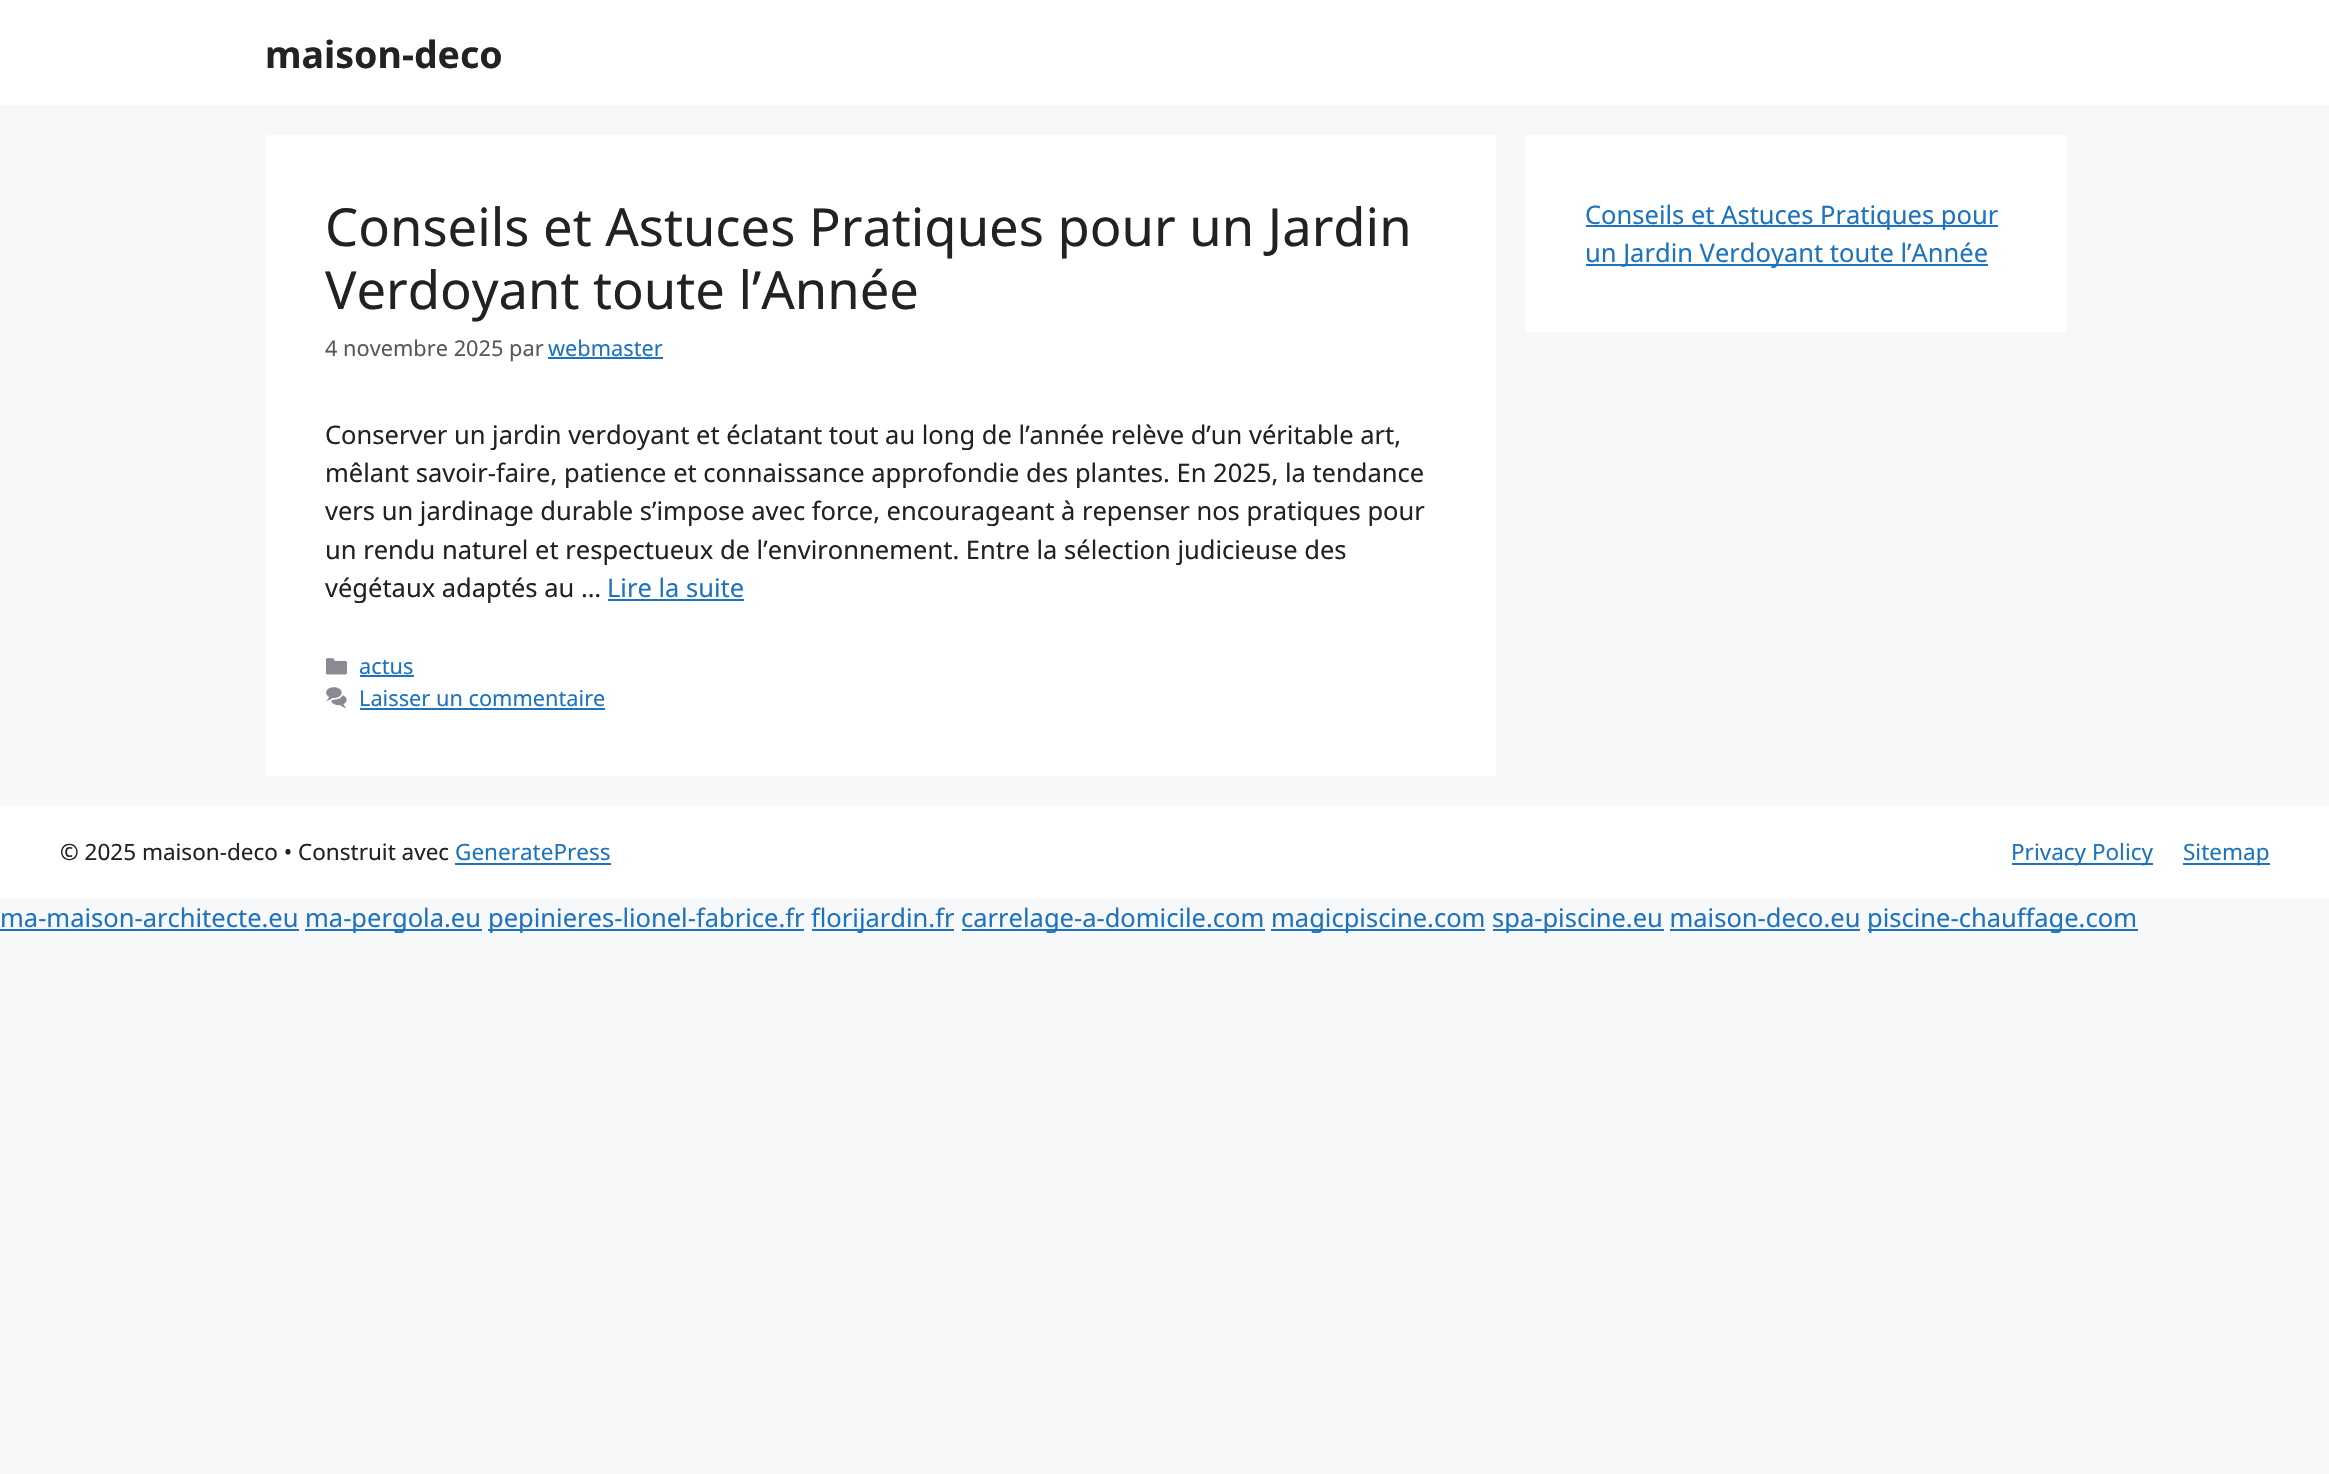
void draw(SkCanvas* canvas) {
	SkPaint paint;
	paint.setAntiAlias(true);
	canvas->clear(0xfff7f8f9);
	paint.setColor(0xffffffff);
	canvas->drawRect(SkRect::MakeXYWH(0, 0, 2329, 105), paint);
	SkFont f1(fontMgr->matchFamilyStyle("Noto Sans", SkFontStyle::Bold()), 37.5);
	f1.setSubpixel(true);
	paint.setColor(0xff222222);
	canvas->drawString("maison-deco", 265, 68, f1, paint);
	paint.setColor(0xffffffff);
	canvas->drawRect(SkRect::MakeXYWH(266, 135, 1230, 641), paint);
	SkFont f2(fontMgr->matchFamilyStyle("Noto Sans", SkFontStyle::Normal()), 52.5);
	f2.setSubpixel(true);
	paint.setColor(0xff222222);
	canvas->drawString("Conseils et Astuces Pratiques pour un Jardin", 325, 246, f2, paint);
	canvas->drawString("Verdoyant toute l’Année", 325, 309, f2, paint);
	SkFont f3(fontMgr->matchFamilyStyle("Noto Sans", SkFontStyle::Normal()), 21.75);
	f3.setSubpixel(true);
	paint.setColor(0xff575760);
	canvas->drawString("4 novembre 2025 par", 325, 356, f3, paint);
	paint.setColor(0xff1e73be);
	canvas->drawString("webmaster", 548, 356, f3, paint);
	canvas->drawRect(SkRect::MakeXYWH(548, 357, 115, 2), paint);
	SkFont f4(fontMgr->matchFamilyStyle("Noto Sans", SkFontStyle::Normal()), 25.5);
	f4.setSubpixel(true);
	paint.setColor(0xff222222);
	canvas->drawString("Conserver un jardin verdoyant et éclatant tout au long de l’année relève d’un véritable art,", 325, 444, f4, paint);
	canvas->drawString("mêlant savoir-faire, patience et connaissance approfondie des plantes. En 2025, la tendance", 325, 482, f4, paint);
	canvas->drawString("vers un jardinage durable s’impose avec force, encourageant à repenser nos pratiques pour", 325, 520, f4, paint);
	canvas->drawString("un rendu naturel et respectueux de l’environnement. Entre la sélection judicieuse des", 325, 559, f4, paint);
	canvas->drawString("végétaux adaptés au …", 325, 597, f4, paint);
	paint.setColor(0xff1e73be);
	canvas->drawString("Lire la suite", 607, 597, f4, paint);
	canvas->drawRect(SkRect::MakeXYWH(608, 599, 136, 2), paint);
	canvas->drawImageRect(SkImages::DeferredFromEncodedData(SkData::MakeFromFileName("img1.png")), SkRect::MakeXYWH(326, 658, 21, 17), SkSamplingOptions());
	canvas->drawString("actus", 359, 674, f3, paint);
	canvas->drawRect(SkRect::MakeXYWH(360, 675, 54, 2), paint);
	canvas->drawImageRect(SkImages::DeferredFromEncodedData(SkData::MakeFromFileName("img2.png")), SkRect::MakeXYWH(326, 687, 21, 22), SkSamplingOptions());
	canvas->drawString("Laisser un commentaire", 359, 706, f3, paint);
	canvas->drawRect(SkRect::MakeXYWH(360, 708, 245, 2), paint);
	paint.setColor(0xffffffff);
	canvas->drawRect(SkRect::MakeXYWH(1526, 135, 540, 197), paint);
	paint.setColor(0xff1e73be);
	canvas->drawRect(SkRect::MakeXYWH(1586, 225, 412, 2), paint);
	canvas->drawString("Conseils et Astuces Pratiques pour", 1585, 224, f4, paint);
	canvas->drawRect(SkRect::MakeXYWH(1586, 264, 402, 2), paint);
	canvas->drawString("un Jardin Verdoyant toute l’Année", 1585, 262, f4, paint);
	paint.setColor(0xffffffff);
	canvas->drawRect(SkRect::MakeXYWH(0, 806, 2329, 93), paint);
	SkFont f5(fontMgr->matchFamilyStyle("Noto Sans", SkFontStyle::Normal()), 22.5);
	f5.setSubpixel(true);
	paint.setColor(0xff222222);
	canvas->drawString("© 2025 maison-deco • Construit avec", 60, 860, f5, paint);
	paint.setColor(0xff1e73be);
	canvas->drawString("GeneratePress", 455, 860, f5, paint);
	canvas->drawRect(SkRect::MakeXYWH(455, 863, 156, 2), paint);
	canvas->drawRect(SkRect::MakeXYWH(2012, 863, 141, 2), paint);
	canvas->drawString("Privacy Policy", 2011, 860, f5, paint);
	canvas->drawRect(SkRect::MakeXYWH(2183, 863, 87, 2), paint);
	canvas->drawString("Sitemap", 2183, 860, f5, paint);
	canvas->drawString("ma-maison-architecte.eu", 0, 927, f4, paint);
	canvas->drawRect(SkRect::MakeXYWH(0, 929, 299, 2), paint);
	canvas->drawRect(SkRect::MakeXYWH(305, 929, 177, 2), paint);
	canvas->drawString("ma-pergola.eu", 305, 927, f4, paint);
	canvas->drawRect(SkRect::MakeXYWH(488, 929, 316, 2), paint);
	canvas->drawString("pepinieres-lionel-fabrice.fr", 488, 927, f4, paint);
	canvas->drawRect(SkRect::MakeXYWH(812, 929, 142, 2), paint);
	canvas->drawString("florijardin.fr", 811, 927, f4, paint);
	canvas->drawRect(SkRect::MakeXYWH(962, 929, 303, 2), paint);
	canvas->drawString("carrelage-a-domicile.com", 961, 927, f4, paint);
	canvas->drawRect(SkRect::MakeXYWH(1271, 929, 214, 2), paint);
	canvas->drawString("magicpiscine.com", 1271, 927, f4, paint);
	canvas->drawRect(SkRect::MakeXYWH(1493, 929, 171, 2), paint);
	canvas->drawString("spa-piscine.eu maison-deco.eu", 1492, 927, f4, paint);
	canvas->drawRect(SkRect::MakeXYWH(1868, 929, 270, 2), paint);
	canvas->drawString("piscine-chauffage.com", 1867, 927, f4, paint);
	canvas->drawRect(SkRect::MakeXYWH(1670, 929, 190, 2), paint);
}
